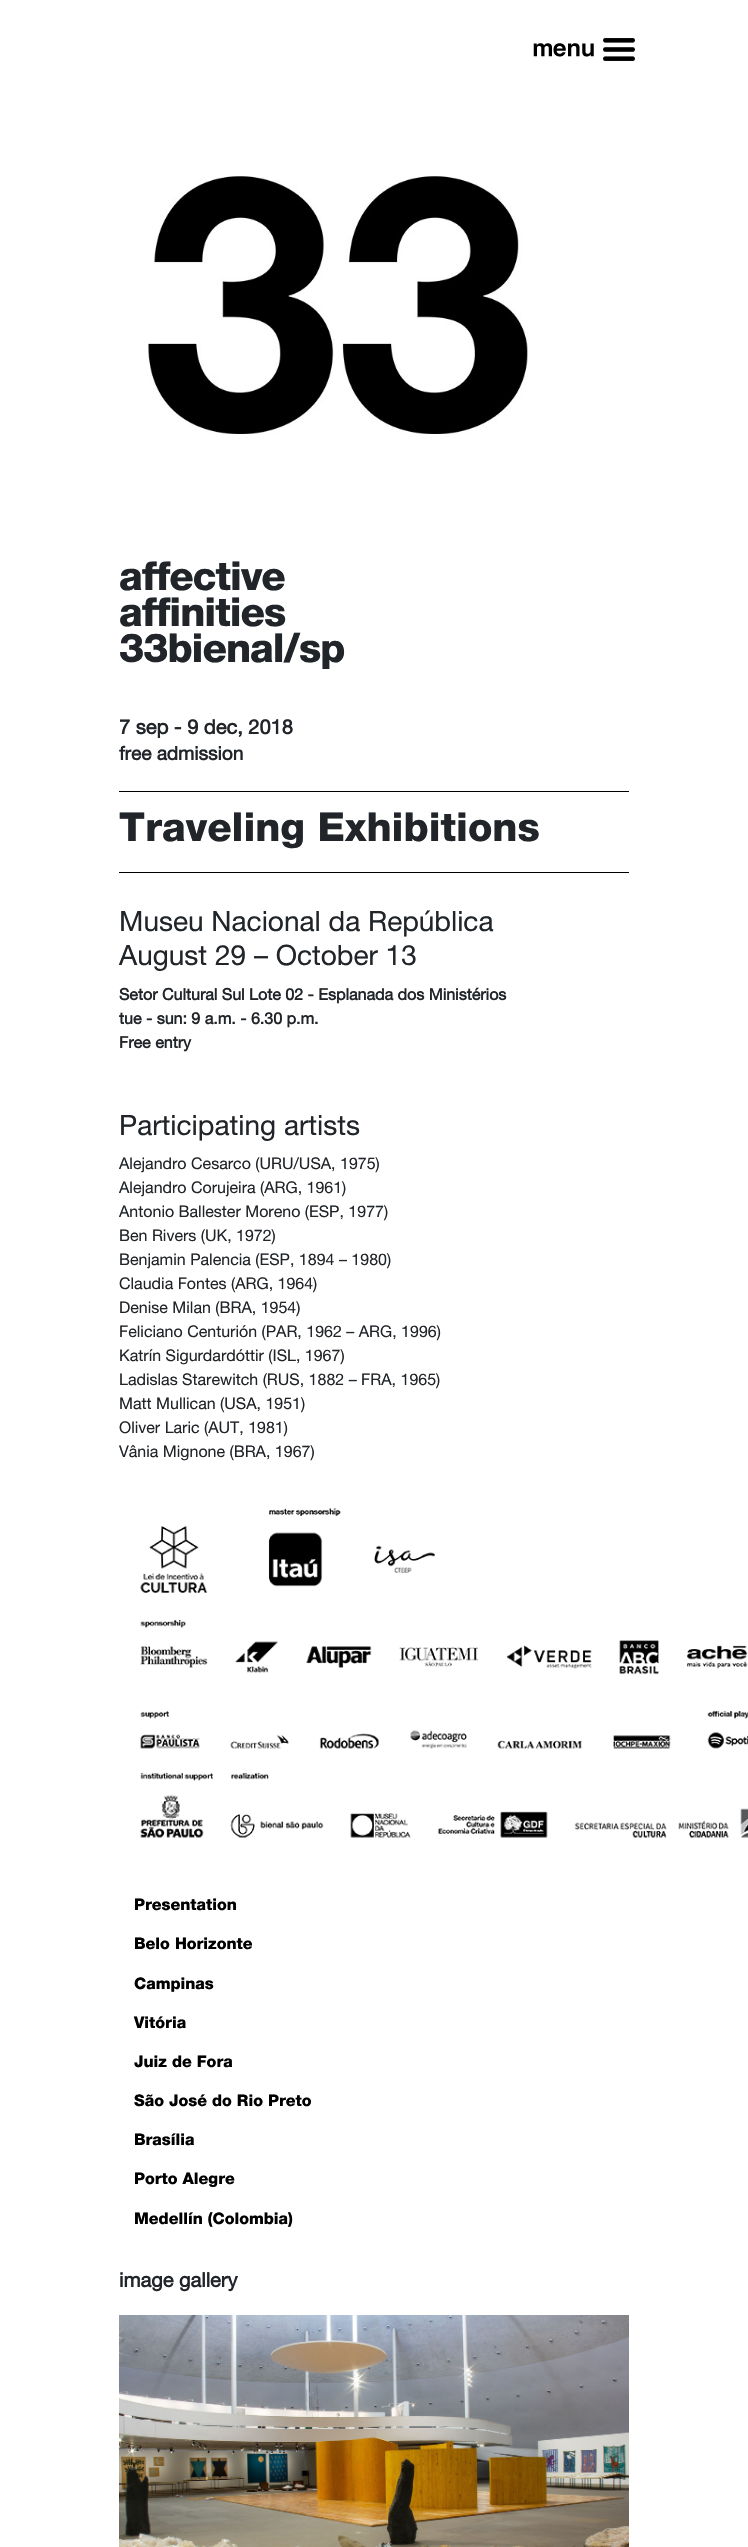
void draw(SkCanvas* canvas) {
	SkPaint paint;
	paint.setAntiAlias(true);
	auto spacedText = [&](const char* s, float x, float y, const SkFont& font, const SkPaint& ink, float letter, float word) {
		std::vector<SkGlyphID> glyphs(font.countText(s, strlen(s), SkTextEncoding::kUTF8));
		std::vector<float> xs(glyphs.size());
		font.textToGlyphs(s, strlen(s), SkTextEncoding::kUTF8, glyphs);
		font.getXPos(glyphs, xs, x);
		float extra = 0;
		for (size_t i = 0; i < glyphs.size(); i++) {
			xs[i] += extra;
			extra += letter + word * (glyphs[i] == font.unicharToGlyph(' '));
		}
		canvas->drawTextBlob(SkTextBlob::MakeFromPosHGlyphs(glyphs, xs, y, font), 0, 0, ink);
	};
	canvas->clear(0xffffffff);
	canvas->drawImageRect(SkImages::DeferredFromEncodedData(SkData::MakeFromFileName("img1.png")), SkRect::MakeXYWH(533, 38, 102, 23), SkSamplingOptions());
	canvas->drawImageRect(SkImages::DeferredFromEncodedData(SkData::MakeFromFileName("img2.png")), SkRect::MakeXYWH(148, 176, 380, 258), SkSamplingOptions());
	SkFont f1(fontMgr->matchFamilyStyle("Helvetica Neue", SkFontStyle::Bold()), 40);
	f1.setSubpixel(true);
	paint.setColor(0xff212529);
	spacedText("affective", 119, 590, f1, paint, -1, 0);
	spacedText("affinities", 119, 626, f1, paint, -1, 0);
	spacedText("33bienal/sp", 119, 662, f1, paint, -1, 0);
	SkFont f2(fontMgr->matchFamilyStyle("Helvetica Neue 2", SkFontStyle::Bold()), 20);
	f2.setSubpixel(true);
	canvas->drawString("7 sep - 9 dec, 2018", 119, 734, f2, paint);
	SkFont f3(fontMgr->matchFamilyStyle("Helvetica Neue 2", SkFontStyle::Bold()), 19);
	f3.setSubpixel(true);
	canvas->drawString("free admission", 119, 760, f3, paint);
	paint.setColor(0xff000000);
	canvas->drawRect(SkRect::MakeXYWH(119, 791, 510, 1), paint);
	paint.setColor(0xff212529);
	canvas->drawString("Traveling Exhibitions", 119, 841, f1, paint);
	paint.setColor(0xff000000);
	canvas->drawRect(SkRect::MakeXYWH(119, 872, 510, 1), paint);
	SkFont f4(fontMgr->matchFamilyStyle("Helvetica Neue", SkFontStyle::Normal()), 28);
	f4.setSubpixel(true);
	paint.setColor(0xff212529);
	canvas->drawString("Museu Nacional da República", 119, 931, f4, paint);
	canvas->drawString("August 29 – October 13", 119, 965, f4, paint);
	SkFont f5(fontMgr->matchFamilyStyle("Helvetica Neue 2", SkFontStyle::Bold()), 16);
	f5.setSubpixel(true);
	canvas->drawString("Setor Cultural Sul Lote 02 - Esplanada dos Ministérios", 119, 1000, f5, paint);
	canvas->drawString("tue - sun: 9 a.m. - 6.30 p.m.", 119, 1024, f5, paint);
	canvas->drawString("Free entry", 119, 1048, f5, paint);
	canvas->drawString("Participating artists", 119, 1135, f4, paint);
	SkFont f6(fontMgr->matchFamilyStyle("Helvetica Neue", SkFontStyle::Normal()), 16);
	f6.setSubpixel(true);
	canvas->drawString("Alejandro Cesarco (URU/USA, 1975)", 119, 1169, f6, paint);
	canvas->drawString("Alejandro Corujeira (ARG, 1961)", 119, 1193, f6, paint);
	canvas->drawString("Antonio Ballester Moreno (ESP, 1977)", 119, 1217, f6, paint);
	canvas->drawString("Ben Rivers (UK, 1972)", 119, 1241, f6, paint);
	canvas->drawString("Benjamin Palencia (ESP, 1894 – 1980)", 119, 1265, f6, paint);
	canvas->drawString("Claudia Fontes (ARG, 1964)", 119, 1289, f6, paint);
	canvas->drawString("Denise Milan (BRA, 1954)", 119, 1313, f6, paint);
	canvas->drawString("Feliciano Centurión (PAR, 1962 – ARG, 1996)", 119, 1337, f6, paint);
	canvas->drawString("Katrín Sigurdardóttir (ISL, 1967)", 119, 1361, f6, paint);
	canvas->drawString("Ladislas Starewitch (RUS, 1882 – FRA, 1965)", 119, 1385, f6, paint);
	canvas->drawString("Matt Mullican (USA, 1951)", 119, 1409, f6, paint);
	canvas->drawString("Oliver Laric (AUT, 1981)", 119, 1433, f6, paint);
	canvas->drawString("Vânia Mignone (BRA, 1967)", 119, 1457, f6, paint);
	canvas->drawImageRect(SkImages::DeferredFromEncodedData(SkData::MakeFromFileName("img3.png")), SkRect::MakeXYWH(140, 1508, 608, 330), SkSamplingOptions());
	SkFont f7(fontMgr->matchFamilyStyle("Helvetica Neue", SkFontStyle::Bold()), 16);
	f7.setSubpixel(true);
	paint.setColor(0xff000000);
	canvas->drawString("Presentation", 134, 1910, f7, paint);
	canvas->drawString("Belo Horizonte", 134, 1949, f7, paint);
	canvas->drawString("Campinas", 134, 1989, f7, paint);
	canvas->drawString("Vitória", 134, 2028, f7, paint);
	canvas->drawString("Juiz de Fora", 134, 2067, f7, paint);
	canvas->drawString("São José do Rio Preto", 134, 2106, f7, paint);
	canvas->drawString("Brasília", 134, 2145, f7, paint);
	canvas->drawString("Porto Alegre", 134, 2184, f7, paint);
	canvas->drawString("Medellín (Colombia)", 134, 2224, f7, paint);
	paint.setColor(0xff212529);
	canvas->drawString("image gallery", 119, 2287, f2, paint);
	canvas->drawImageRect(SkImages::DeferredFromEncodedData(SkData::MakeFromFileName("img4.png")), SkRect::MakeXYWH(119, 2315, 510, 232), SkSamplingOptions());
}
